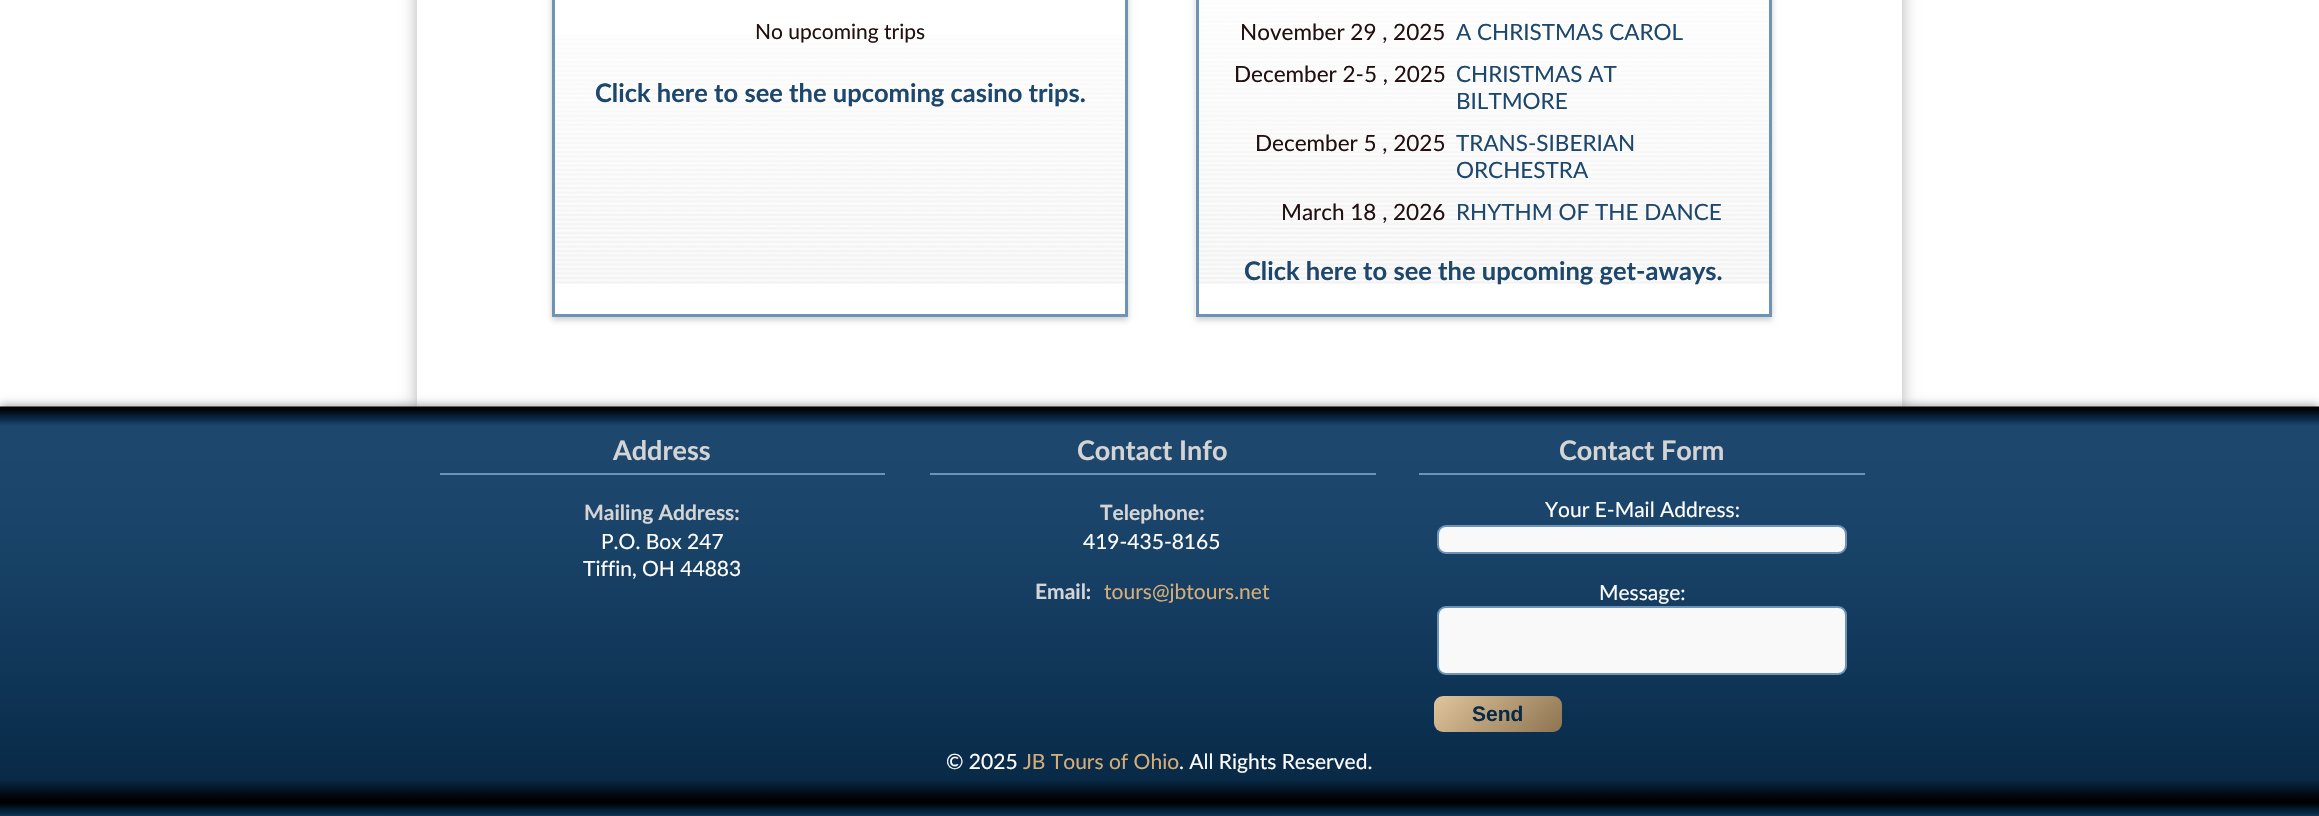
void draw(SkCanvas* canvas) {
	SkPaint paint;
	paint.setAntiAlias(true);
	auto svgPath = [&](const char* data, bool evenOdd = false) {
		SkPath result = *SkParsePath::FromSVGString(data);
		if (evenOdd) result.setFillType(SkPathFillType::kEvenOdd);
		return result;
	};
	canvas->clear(0xffffffff);
	paint.setColor(0x4d000000);
	paint.setMaskFilter(SkMaskFilter::MakeBlur(kNormal_SkBlurStyle, 7.5));
	canvas->drawRect(SkRect::MakeXYWH(417, -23, 1485, 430), paint);
	paint.setMaskFilter(nullptr);
	paint.setColor(0xffffffff);
	canvas->drawRect(SkRect::MakeXYWH(417, 0, 1485, 407), paint);
	canvas->save();
	canvas->clipPath(svgPath("M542 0H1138V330H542ZM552-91H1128V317H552Z", true), true);
	paint.setColor(0x33000000);
	paint.setMaskFilter(SkMaskFilter::MakeBlur(kNormal_SkBlurStyle, 3));
	canvas->drawRect(SkRect::MakeXYWH(552, -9, 576, 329), paint);
	paint.setMaskFilter(nullptr);
	canvas->restore();
	canvas->drawImageRect(SkImages::DeferredFromEncodedData(SkData::MakeFromFileName("img1.png")), SkRect::MakeXYWH(555, 35, 570, 279), SkSamplingOptions());
	paint.setStroke(true);
	paint.setStrokeWidth(3);
	paint.setColor(0xff6d93b6);
	canvas->drawRect(SkRect::MakeXYWH(553.5, -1.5, 573, 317), paint);
	SkFont f1(fontMgr->matchFamilyStyle("Lato", SkFontStyle::Normal()), 21);
	f1.setSubpixel(true);
	paint.setStroke(false);
	paint.setColor(0xff221010);
	canvas->drawString("No upcoming trips", 755, 39, f1, paint);
	SkFont f2(fontMgr->matchFamilyStyle("Lato", SkFontStyle::Bold()), 25.5);
	f2.setSubpixel(true);
	paint.setColor(0xff1d476d);
	canvas->drawString("Click here to see the upcoming casino trips.", 595, 102, f2, paint);
	paint.setColor(0x33000000);
	paint.setMaskFilter(SkMaskFilter::MakeBlur(kNormal_SkBlurStyle, 3));
	canvas->drawRect(SkRect::MakeXYWH(1196, -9, 576, 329), paint);
	paint.setMaskFilter(nullptr);
	canvas->drawImageRect(SkImages::DeferredFromEncodedData(SkData::MakeFromFileName("img2.png")), SkRect::MakeXYWH(1195, 0, 574, 317), SkSamplingOptions());
	paint.setStroke(true);
	paint.setColor(0xff6d93b6);
	canvas->drawRect(SkRect::MakeXYWH(1197.5, -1.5, 573, 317), paint);
	SkFont f3(fontMgr->matchFamilyStyle("Lato", SkFontStyle::Normal()), 22.5);
	f3.setSubpixel(true);
	paint.setStroke(false);
	paint.setColor(0xff221010);
	canvas->drawString("November 29 , 2025", 1240, 40, f3, paint);
	paint.setColor(0xff1d476d);
	canvas->drawString("A CHRISTMAS CAROL", 1456, 40, f3, paint);
	paint.setColor(0xff221010);
	canvas->drawString("December 2-5 , 2025", 1234, 82, f3, paint);
	paint.setColor(0xff1d476d);
	canvas->drawString("CHRISTMAS AT", 1456, 82, f3, paint);
	canvas->drawString("BILTMORE", 1456, 109, f3, paint);
	paint.setColor(0xff221010);
	canvas->drawString("December 5 , 2025", 1255, 151, f3, paint);
	paint.setColor(0xff1d476d);
	canvas->drawString("TRANS-SIBERIAN", 1456, 151, f3, paint);
	canvas->drawString("ORCHESTRA", 1456, 178, f3, paint);
	paint.setColor(0xff221010);
	canvas->drawString("March 18 , 2026", 1281, 220, f3, paint);
	paint.setColor(0xff1d476d);
	canvas->drawString("RHYTHM OF THE DANCE", 1456, 220, f3, paint);
	canvas->drawString("Click here to see the upcoming get-aways.", 1244, 280, f2, paint);
	paint.setColor(0x4d000000);
	paint.setMaskFilter(SkMaskFilter::MakeBlur(kNormal_SkBlurStyle, 4));
	canvas->drawRect(SkRect::MakeXYWH(0, 404, 2319, 409), paint);
	paint.setMaskFilter(nullptr);
	canvas->drawImageRect(SkImages::DeferredFromEncodedData(SkData::MakeFromFileName("img3.png")), SkRect::MakeXYWH(0, 406, 2319, 410), SkSamplingOptions());
	paint.setColor(0xff6d93b6);
	canvas->drawRect(SkRect::MakeXYWH(440, 473, 445, 2), paint);
	SkFont f4(fontMgr->matchFamilyStyle("Lato", SkFontStyle::Bold()), 27);
	f4.setSubpixel(true);
	paint.setColor(0xffd4d4d4);
	canvas->drawString("Address", 613, 460, f4, paint);
	SkFont f5(fontMgr->matchFamilyStyle("Lato", SkFontStyle::Bold()), 21);
	f5.setSubpixel(true);
	canvas->drawString("Mailing Address:", 584, 520, f5, paint);
	paint.setColor(0xffffffff);
	canvas->drawString("P.O. Box 247", 601, 549, f1, paint);
	canvas->drawString("Tiffin, OH 44883", 583, 576, f1, paint);
	paint.setColor(0xff6d93b6);
	canvas->drawRect(SkRect::MakeXYWH(930, 473, 446, 2), paint);
	paint.setColor(0xffd4d4d4);
	canvas->drawString("Contact Info", 1077, 460, f4, paint);
	canvas->drawString("Telephone:", 1100, 520, f5, paint);
	paint.setColor(0xffffffff);
	canvas->drawString("419-435-8165", 1083, 549, f1, paint);
	paint.setColor(0xffd4d4d4);
	canvas->drawString("Email:", 1035, 599, f5, paint);
	paint.setColor(0xffd4ae78);
	canvas->drawString("tours@jbtours.net", 1104, 599, f1, paint);
	paint.setColor(0xff6d93b6);
	canvas->drawRect(SkRect::MakeXYWH(1419, 473, 446, 2), paint);
	paint.setColor(0xffd4d4d4);
	canvas->drawString("Contact Form", 1559, 460, f4, paint);
	paint.setColor(0xffffffff);
	canvas->drawString("Your E-Mail Address:", 1545, 517, f1, paint);
	paint.setColor(0xfff9f9f9);
	canvas->drawRoundRect(SkRect::MakeXYWH(1438, 526, 408, 27), 8, 8, paint);
	paint.setStroke(true);
	paint.setStrokeWidth(2);
	paint.setColor(0xff6d93b6);
	canvas->drawRoundRect(SkRect::MakeXYWH(1438, 526, 408, 27), 8, 8, paint);
	paint.setStroke(false);
	paint.setColor(0xffffffff);
	canvas->drawString("Message:", 1599, 600, f1, paint);
	paint.setColor(0xfff9f9f9);
	canvas->drawRoundRect(SkRect::MakeXYWH(1438, 607, 408, 67), 8, 8, paint);
	paint.setStroke(true);
	paint.setColor(0xff6d93b6);
	canvas->drawRoundRect(SkRect::MakeXYWH(1438, 607, 408, 67), 8, 8, paint);
	paint.setStroke(false);
	{
		const SkColor colors[] = {0xffdfc49c, 0xff8d7450};
		const float stops[] = {0, 1};
		const SkPoint ends[] = {{1457, 673}, {1539, 755}};
		paint.setShader(SkGradientShader::MakeLinear(ends, colors, stops, 2, SkTileMode::kClamp));
		paint.setAlpha(255);
	}
	canvas->drawRoundRect(SkRect::MakeXYWH(1434, 696, 128, 36), 9, 9, paint);
	SkFont f6(fontMgr->matchFamilyStyle("Liberation Sans", SkFontStyle::Bold()), 21);
	f6.setSubpixel(true);
	paint.setShader(nullptr);
	paint.setColor(0xff092a47);
	canvas->drawString("Send", 1472, 721, f6, paint);
	paint.setColor(0xffffffff);
	canvas->drawString("© 2025", 946, 769, f1, paint);
	paint.setColor(0xffd4ae78);
	canvas->drawString("JB Tours of Ohio", 1023, 769, f1, paint);
	paint.setColor(0xffffffff);
	canvas->drawString(". All Rights Reserved.", 1179, 769, f1, paint);
}
